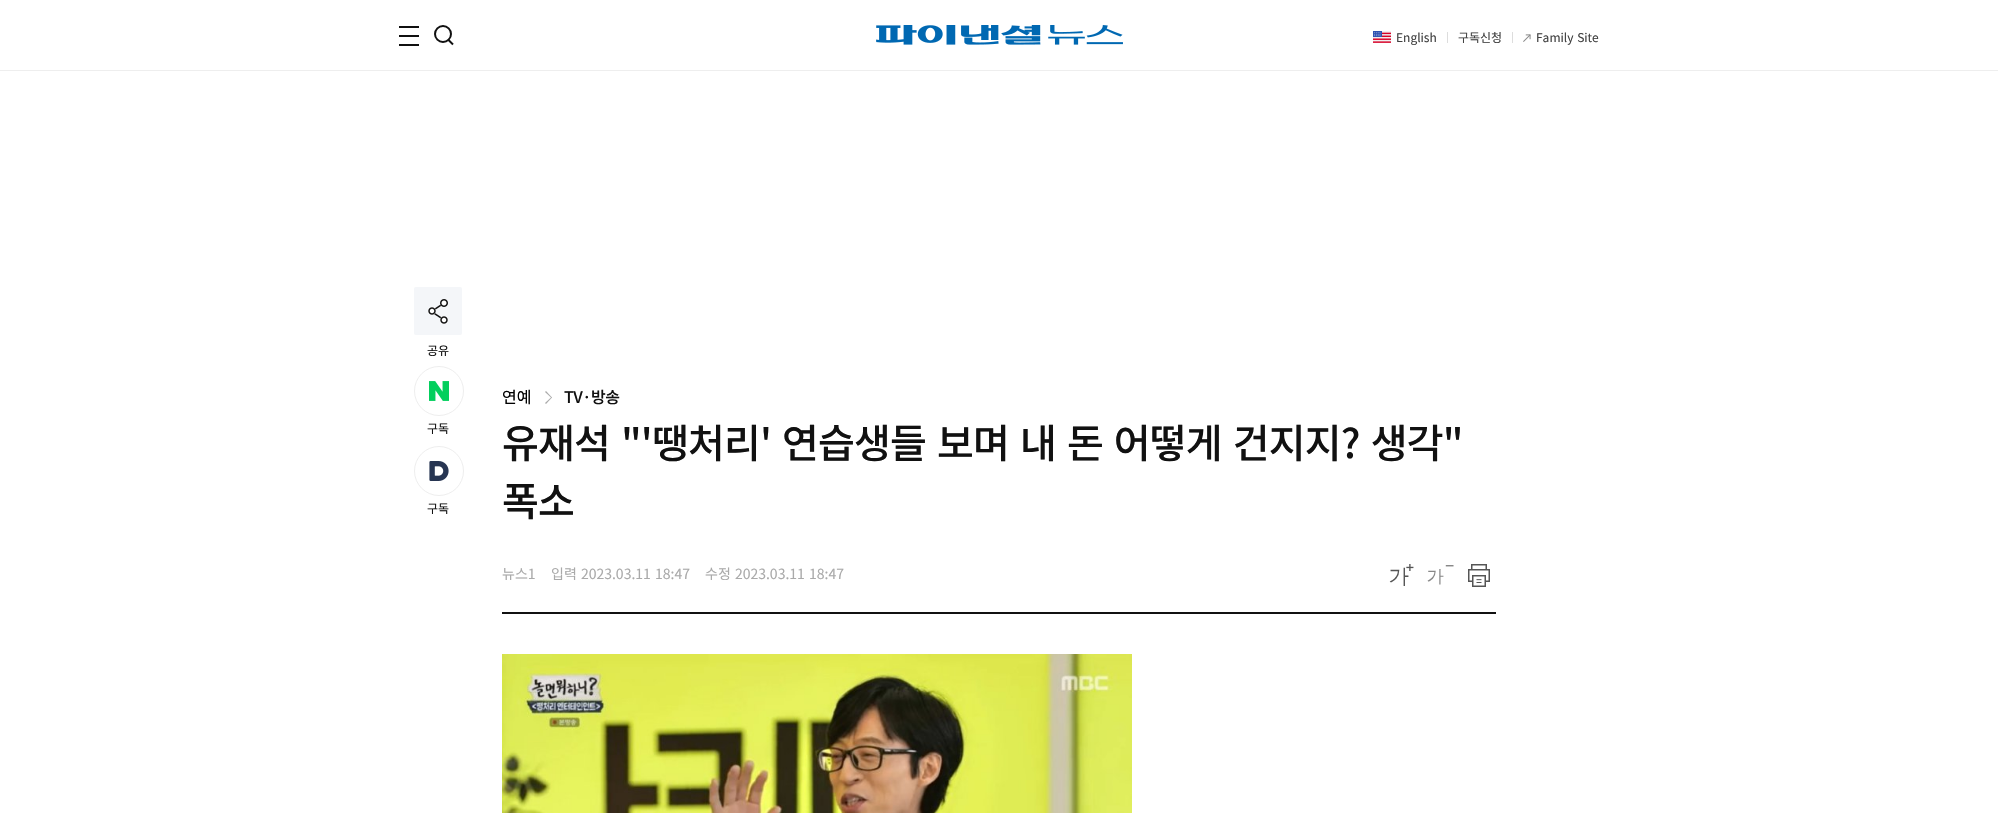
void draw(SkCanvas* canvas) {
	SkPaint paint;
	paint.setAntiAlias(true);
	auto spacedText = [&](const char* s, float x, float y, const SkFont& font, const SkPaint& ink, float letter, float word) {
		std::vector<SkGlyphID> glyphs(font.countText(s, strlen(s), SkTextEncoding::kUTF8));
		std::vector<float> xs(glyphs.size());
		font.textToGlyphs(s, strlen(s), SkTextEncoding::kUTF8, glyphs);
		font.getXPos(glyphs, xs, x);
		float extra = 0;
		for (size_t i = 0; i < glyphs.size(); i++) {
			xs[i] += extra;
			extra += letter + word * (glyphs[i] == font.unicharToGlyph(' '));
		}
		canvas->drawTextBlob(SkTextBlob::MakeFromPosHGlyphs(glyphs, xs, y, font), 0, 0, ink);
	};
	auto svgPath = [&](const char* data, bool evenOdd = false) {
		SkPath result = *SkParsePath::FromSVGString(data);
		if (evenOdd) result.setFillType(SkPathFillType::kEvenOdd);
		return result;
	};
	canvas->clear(0xffffffff);
	paint.setColor(0xffeeeeee);
	canvas->drawRect(SkRect::MakeXYWH(0, 70, 1998, 1), paint);
	canvas->drawImageRect(SkImages::DeferredFromEncodedData(SkData::MakeFromFileName("img1.png")), SkRect::MakeXYWH(876, 25, 247, 20), SkSamplingOptions());
	paint.setColor(0xff101010);
	canvas->drawRect(SkRect::MakeXYWH(399, 26, 20, 2), paint);
	canvas->drawRect(SkRect::MakeXYWH(399, 35, 20, 2), paint);
	canvas->drawRect(SkRect::MakeXYWH(399, 44, 20, 2), paint);
	paint.setStroke(true);
	paint.setStrokeWidth(2);
	canvas->drawCircle(443, 34, 8, paint);
	paint.setColor(0xff111111);
	canvas->drawPath(svgPath("M448 39.5L453 44.5"), paint);
	canvas->drawImageRect(SkImages::DeferredFromEncodedData(SkData::MakeFromFileName("img2.png")), SkRect::MakeXYWH(1373, 31, 18, 12), SkSamplingOptions());
	SkFont f1(fontMgr->matchFamilyStyle("Noto Sans KR", SkFontStyle::Normal()), 12);
	f1.setSubpixel(true);
	paint.setStroke(false);
	paint.setColor(0xff404040);
	canvas->drawString("English", 1396, 42, f1, paint);
	paint.setColor(0xffdddddd);
	canvas->drawRect(SkRect::MakeXYWH(1447, 32, 1, 11), paint);
	paint.setColor(0xff404040);
	canvas->drawString("구독신청", 1458, 42, f1, paint);
	paint.setColor(0xffdddddd);
	canvas->drawRect(SkRect::MakeXYWH(1512, 32, 1, 11), paint);
	canvas->drawImageRect(SkImages::DeferredFromEncodedData(SkData::MakeFromFileName("img3.png")), SkRect::MakeXYWH(1523, 34, 8, 8), SkSamplingOptions());
	paint.setColor(0xff404040);
	spacedText("Family Site", 1536, 42, f1, paint, 0, 1);
	paint.setColor(0xfff4f6f9);
	canvas->drawRoundRect(SkRect::MakeXYWH(414, 287, 48, 48), 2, 2, paint);
	canvas->drawImageRect(SkImages::DeferredFromEncodedData(SkData::MakeFromFileName("img4.png")), SkRect::MakeXYWH(428, 299, 20, 25), SkSamplingOptions());
	paint.setColor(0xff111111);
	canvas->drawString("공유", 427, 355, f1, paint);
	paint.setStroke(true);
	paint.setStrokeWidth(1);
	paint.setColor(0xffeeeeee);
	canvas->drawCircle(439, 391, 24.5, paint);
	canvas->drawImageRect(SkImages::DeferredFromEncodedData(SkData::MakeFromFileName("img5.png")), SkRect::MakeXYWH(429, 381, 20, 20), SkSamplingOptions());
	paint.setStroke(false);
	paint.setColor(0xff111111);
	canvas->drawString("구독", 427, 433, f1, paint);
	paint.setStroke(true);
	paint.setColor(0xffeeeeee);
	canvas->drawCircle(439, 471, 24.5, paint);
	canvas->drawImageRect(SkImages::DeferredFromEncodedData(SkData::MakeFromFileName("img6.png")), SkRect::MakeXYWH(429, 461, 20, 20), SkSamplingOptions());
	paint.setStroke(false);
	paint.setColor(0xff111111);
	canvas->drawString("구독", 427, 513, f1, paint);
	SkFont f2(fontMgr->matchFamilyStyle("Noto Sans KR", SkFontStyle::Normal()), 16);
	f2.setSubpixel(true);
	paint.setColor(0xff000000);
	canvas->drawString("연예", 502, 403, f2, paint);
	paint.setColor(0xffaaaaaa);
	canvas->drawPath(svgPath("M545 392L546 391L552 397.5L551.5 398Z"), paint);
	canvas->drawPath(svgPath("M545 403L551.5 397L552 397.5L546 404Z"), paint);
	SkFont f3(fontMgr->matchFamilyStyle("Noto Sans KR", SkFontStyle(500, SkFontStyle::kNormal_Width, SkFontStyle::kUpright_Slant)), 16);
	f3.setSubpixel(true);
	paint.setColor(0xff111111);
	spacedText("TV·방송", 564, 403, f3, paint, -0.5, 0);
	SkFont f4(fontMgr->matchFamilyStyle("Noto Sans KR", SkFontStyle(500, SkFontStyle::kNormal_Width, SkFontStyle::kUpright_Slant)), 40);
	f4.setSubpixel(true);
	spacedText("유재석 \"'땡처리' 연습생들 보며 내 돈 어떻게 건지지? 생각\"", 502, 458, f4, paint, -0.8, 2.75);
	spacedText("폭소", 502, 516, f4, paint, -0.8, 0);
	SkFont f5(fontMgr->matchFamilyStyle("Noto Sans KR", SkFontStyle::Normal()), 14);
	f5.setSubpixel(true);
	paint.setColor(0xffaaaaaa);
	canvas->drawString("뉴스1", 502, 579, f5, paint);
	spacedText("입력 2023.03.11 18:47", 551, 579, f5, paint, 0, 1);
	spacedText("수정 2023.03.11 18:47", 705, 579, f5, paint, 0, 1);
	canvas->drawImageRect(SkImages::DeferredFromEncodedData(SkData::MakeFromFileName("img7.png")), SkRect::MakeXYWH(1389, 564, 25, 22), SkSamplingOptions());
	canvas->drawImageRect(SkImages::DeferredFromEncodedData(SkData::MakeFromFileName("img8.png")), SkRect::MakeXYWH(1427, 565, 27, 20), SkSamplingOptions());
	canvas->drawImageRect(SkImages::DeferredFromEncodedData(SkData::MakeFromFileName("img9.png")), SkRect::MakeXYWH(1468, 564, 22, 23), SkSamplingOptions());
	paint.setColor(0xff111111);
	canvas->drawRect(SkRect::MakeXYWH(502, 612, 994, 2), paint);
	canvas->drawImageRect(SkImages::DeferredFromEncodedData(SkData::MakeFromFileName("img10.png")), SkRect::MakeXYWH(502, 654, 630, 159), SkSamplingOptions());
}
